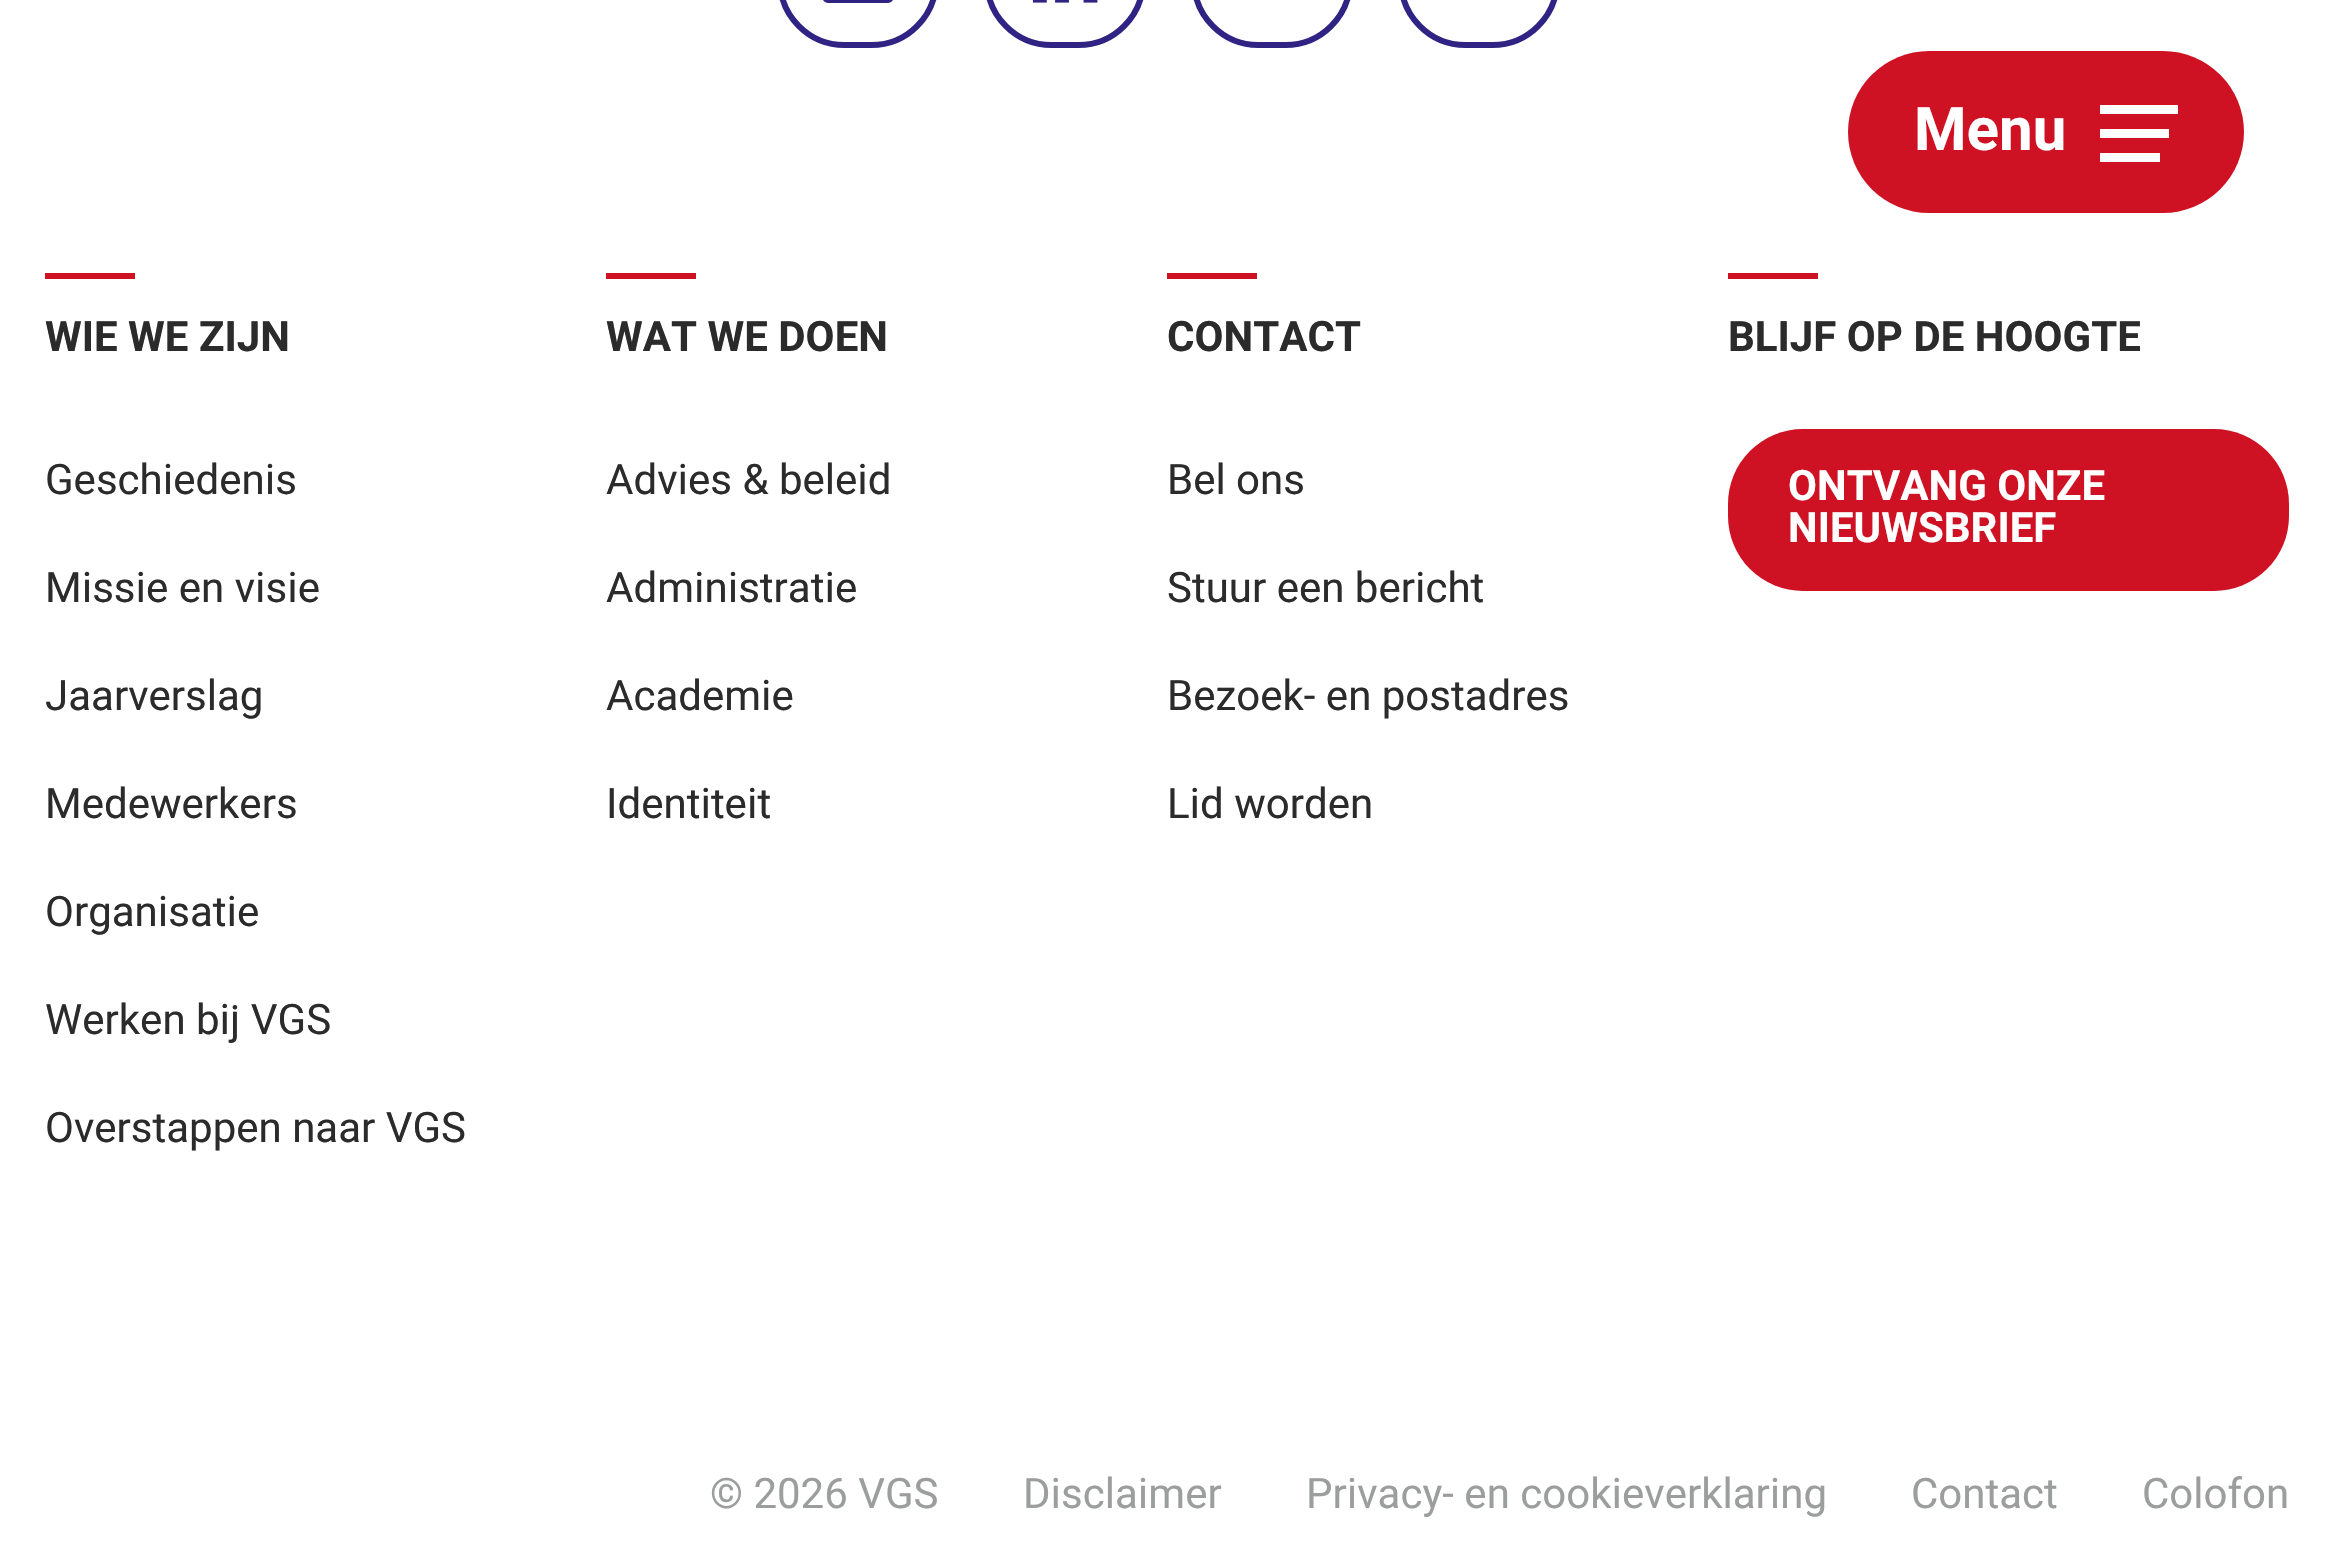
void draw(SkCanvas* canvas) {
	SkPaint paint;
	paint.setAntiAlias(true);
	canvas->clear(0xffffffff);
	paint.setColor(0xffce1224);
	canvas->drawRoundRect(SkRect::MakeXYWH(1848, 51, 396, 162), 81, 81, paint);
	SkFont f1(fontMgr->matchFamilyStyle("Heebo", SkFontStyle::Bold()), 60);
	f1.setSubpixel(true);
	paint.setColor(0xffffffff);
	canvas->drawString("Menu", 1914, 150, f1, paint);
	canvas->drawRect(SkRect::MakeXYWH(2100, 105, 78, 9), paint);
	canvas->drawRect(SkRect::MakeXYWH(2100, 129, 69, 9), paint);
	canvas->drawRect(SkRect::MakeXYWH(2100, 153, 60, 9), paint);
	paint.setStroke(true);
	paint.setStrokeWidth(6);
	paint.setColor(0xff2f2483);
	canvas->drawRoundRect(SkRect::MakeXYWH(780, -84, 156, 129), 78, 78, paint);
	canvas->drawImageRect(SkImages::DeferredFromEncodedData(SkData::MakeFromFileName("img1.png")), SkRect::MakeXYWH(823, 0, 70, 3), SkSamplingOptions());
	canvas->drawRoundRect(SkRect::MakeXYWH(987, -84, 156, 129), 78, 78, paint);
	canvas->drawImageRect(SkImages::DeferredFromEncodedData(SkData::MakeFromFileName("img2.png")), SkRect::MakeXYWH(1032, 0, 66, 3), SkSamplingOptions());
	canvas->drawRoundRect(SkRect::MakeXYWH(1194, -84, 156, 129), 78, 78, paint);
	canvas->drawRoundRect(SkRect::MakeXYWH(1401, -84, 156, 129), 78, 78, paint);
	paint.setStroke(false);
	paint.setColor(0xffce1224);
	canvas->drawRect(SkRect::MakeXYWH(45, 273, 90, 6), paint);
	SkFont f2(fontMgr->matchFamilyStyle("Heebo", SkFontStyle::Bold()), 42);
	f2.setSubpixel(true);
	paint.setColor(0xff2b2b2b);
	canvas->drawString("WIE WE ZIJN", 45, 351, f2, paint);
	SkFont f3(fontMgr->matchFamilyStyle("Heebo", SkFontStyle::Normal()), 42);
	f3.setSubpixel(true);
	canvas->drawString("Geschiedenis", 45, 494, f3, paint);
	canvas->drawString("Missie en visie", 45, 602, f3, paint);
	canvas->drawString("Jaarverslag", 45, 710, f3, paint);
	canvas->drawString("Medewerkers", 45, 818, f3, paint);
	canvas->drawString("Organisatie", 45, 926, f3, paint);
	canvas->drawString("Werken bij VGS", 45, 1034, f3, paint);
	canvas->drawString("Overstappen naar VGS", 45, 1142, f3, paint);
	paint.setColor(0xffce1224);
	canvas->drawRect(SkRect::MakeXYWH(606, 273, 90, 6), paint);
	paint.setColor(0xff2b2b2b);
	canvas->drawString("WAT WE DOEN", 606, 351, f2, paint);
	canvas->drawString("Advies & beleid", 606, 494, f3, paint);
	canvas->drawString("Administratie", 606, 602, f3, paint);
	canvas->drawString("Academie", 606, 710, f3, paint);
	canvas->drawString("Identiteit", 606, 818, f3, paint);
	paint.setColor(0xffce1224);
	canvas->drawRect(SkRect::MakeXYWH(1167, 273, 90, 6), paint);
	paint.setColor(0xff2b2b2b);
	canvas->drawString("CONTACT", 1167, 351, f2, paint);
	canvas->drawString("Bel ons", 1167, 494, f3, paint);
	canvas->drawString("Stuur een bericht", 1167, 602, f3, paint);
	canvas->drawString("Bezoek- en postadres", 1167, 710, f3, paint);
	canvas->drawString("Lid worden", 1167, 818, f3, paint);
	paint.setColor(0xffce1224);
	canvas->drawRect(SkRect::MakeXYWH(1728, 273, 90, 6), paint);
	paint.setColor(0xff2b2b2b);
	canvas->drawString("BLIJF OP DE HOOGTE", 1728, 351, f2, paint);
	paint.setColor(0xffce1224);
	canvas->drawRoundRect(SkRect::MakeXYWH(1728, 429, 561, 162), 75, 75, paint);
	paint.setColor(0xffffffff);
	canvas->drawString("ONTVANG ONZE", 1788, 500, f2, paint);
	canvas->drawString("NIEUWSBRIEF", 1788, 542, f2, paint);
	paint.setColor(0xff9c9d9d);
	canvas->drawString("© 2026 VGS", 710, 1508, f3, paint);
	canvas->drawString("Disclaimer", 1023, 1508, f3, paint);
	canvas->drawString("Privacy- en cookieverklaring", 1306, 1508, f3, paint);
	canvas->drawString("Contact", 1911, 1508, f3, paint);
	canvas->drawString("Colofon", 2142, 1508, f3, paint);
}
